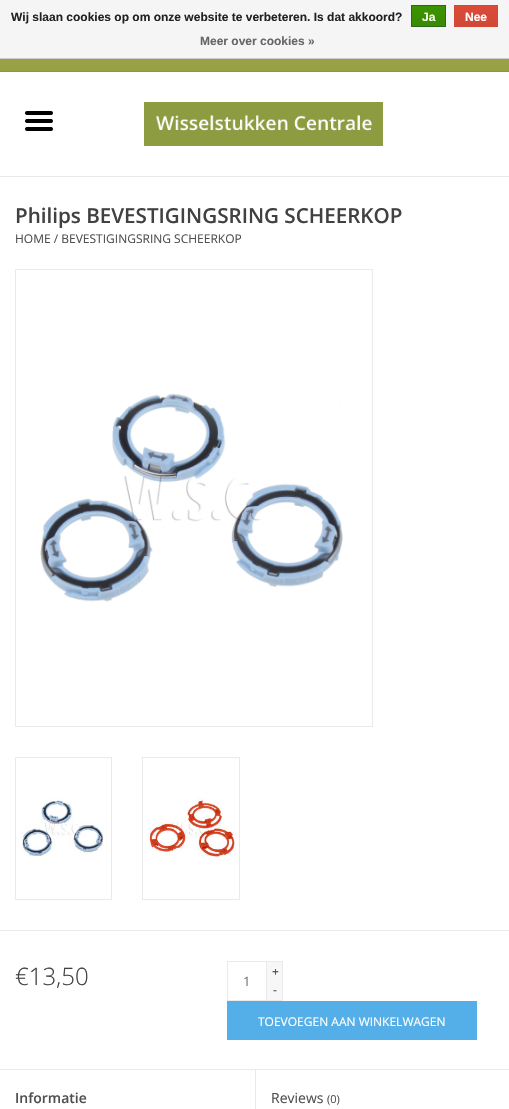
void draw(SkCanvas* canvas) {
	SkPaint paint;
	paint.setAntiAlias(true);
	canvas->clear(0xffffffff);
	paint.setColor(0xfff5f5f5);
	canvas->drawRect(SkRect::MakeXYWH(0, 0, 509, 58), paint);
	paint.setColor(0xffcccccc);
	canvas->drawRect(SkRect::MakeXYWH(0, 58, 509, 1), paint);
	SkFont f1(fontMgr->matchFamilyStyle("Liberation Sans", SkFontStyle::Bold()), 12);
	f1.setSubpixel(true);
	paint.setColor(0xff222222);
	canvas->drawString("Wij slaan cookies op om onze website te verbeteren. Is dat akkoord?", 11, 21, f1, paint);
	{
		const SkColor colors[] = {0xff3c9300, 0xff398a00};
		const float stops[] = {0, 1};
		const SkPoint ends[] = {{429, 6}, {429, 26}};
		paint.setShader(SkGradientShader::MakeLinear(ends, colors, stops, 2, SkTileMode::kClamp));
		paint.setAlpha(255);
	}
	canvas->drawRect(SkRect::MakeXYWH(412, 6, 33, 20), paint);
	paint.setStroke(true);
	paint.setStrokeWidth(1);
	paint.setShader(nullptr);
	paint.setColor(0xff29691d);
	canvas->drawRect(SkRect::MakeXYWH(411.5, 5.5, 34, 21), paint);
	paint.setStroke(false);
	paint.setColor(0xffffffff);
	canvas->drawString("Ja", 422, 21, f1, paint);
	{
		const SkColor colors[] = {0xffdc4a38, 0xffd14836};
		const float stops[] = {0, 1};
		const SkPoint ends[] = {{476, 6}, {476, 26}};
		paint.setShader(SkGradientShader::MakeLinear(ends, colors, stops, 2, SkTileMode::kClamp));
		paint.setAlpha(255);
	}
	canvas->drawRect(SkRect::MakeXYWH(455, 6, 42, 20), paint);
	paint.setStroke(true);
	paint.setShader(nullptr);
	paint.setColor(0xffd14836);
	canvas->drawRect(SkRect::MakeXYWH(454.5, 5.5, 43, 21), paint);
	paint.setStroke(false);
	paint.setColor(0xffffffff);
	canvas->drawString("Nee", 465, 21, f1, paint);
	paint.setColor(0xff666666);
	canvas->drawString("Meer over cookies »", 200, 45, f1, paint);
	paint.setColor(0xff98a244);
	canvas->drawRect(SkRect::MakeXYWH(0, 59, 509, 12), paint);
	paint.setColor(0xff8d963f);
	canvas->drawRect(SkRect::MakeXYWH(0, 71, 509, 1), paint);
	paint.setColor(0xffeaeaea);
	canvas->drawRect(SkRect::MakeXYWH(0, 176, 509, 1), paint);
	canvas->drawImageRect(SkImages::DeferredFromEncodedData(SkData::MakeFromFileName("img1.png")), SkRect::MakeXYWH(144, 102, 239, 44), SkSamplingOptions());
	canvas->drawImageRect(SkImages::DeferredFromEncodedData(SkData::MakeFromFileName("img2.png")), SkRect::MakeXYWH(25, 111, 28, 20), SkSamplingOptions());
	SkFont f2(fontMgr->matchFamilyStyle("Open Sans", SkFontStyle(600, SkFontStyle::kNormal_Width, SkFontStyle::kUpright_Slant)), 20.6);
	f2.setSubpixel(true);
	paint.setColor(0xff414141);
	canvas->drawString("Philips BEVESTIGINGSRING SCHEERKOP", 15, 223, f2, paint);
	SkFont f3(fontMgr->matchFamilyStyle("Open Sans", SkFontStyle::Normal()), 12);
	f3.setSubpixel(true);
	paint.setColor(0xff505050);
	canvas->drawString("HOME / BEVESTIGINGSRING SCHEERKOP", 15, 243, f3, paint);
	paint.setStroke(true);
	paint.setColor(0xffeaeaea);
	canvas->drawRect(SkRect::MakeXYWH(15.5, 269.5, 357, 457), paint);
	canvas->drawImageRect(SkImages::DeferredFromEncodedData(SkData::MakeFromFileName("img3.png")), SkRect::MakeXYWH(16, 270, 356, 456), SkSamplingOptions());
	canvas->drawRect(SkRect::MakeXYWH(15.5, 757.5, 96, 142), paint);
	canvas->drawImageRect(SkImages::DeferredFromEncodedData(SkData::MakeFromFileName("img4.png")), SkRect::MakeXYWH(16, 758, 95, 141), SkSamplingOptions());
	canvas->drawRect(SkRect::MakeXYWH(142.5, 757.5, 97, 142), paint);
	canvas->drawImageRect(SkImages::DeferredFromEncodedData(SkData::MakeFromFileName("img5.png")), SkRect::MakeXYWH(143, 758, 96, 141), SkSamplingOptions());
	paint.setStroke(false);
	canvas->drawRect(SkRect::MakeXYWH(0, 930, 509, 1), paint);
	SkFont f4(fontMgr->matchFamilyStyle("Open Sans", SkFontStyle(300, SkFontStyle::kNormal_Width, SkFontStyle::kUpright_Slant)), 24);
	f4.setSubpixel(true);
	paint.setColor(0xff414141);
	canvas->drawString("€13,50", 15, 985, f4, paint);
	paint.setStroke(true);
	paint.setColor(0xffeaeaea);
	canvas->drawRect(SkRect::MakeXYWH(227.5, 961.5, 39, 39), paint);
	SkFont f5(fontMgr->matchFamilyStyle("Open Sans", SkFontStyle::Normal()), 13);
	f5.setSubpixel(true);
	paint.setStroke(false);
	paint.setColor(0xff777777);
	canvas->drawString("1", 243, 986, f5, paint);
	paint.setColor(0xfff7f7f7);
	canvas->drawRect(SkRect::MakeXYWH(267, 962, 15, 38), paint);
	paint.setColor(0xffeaeaea);
	canvas->drawRect(SkRect::MakeXYWH(267, 961, 16, 1), paint);
	canvas->drawRect(SkRect::MakeXYWH(282, 961, 1, 40), paint);
	canvas->drawRect(SkRect::MakeXYWH(267, 1000, 16, 1), paint);
	paint.setColor(0xff414141);
	canvas->drawString("+", 272, 976, f3, paint);
	canvas->drawString("-", 273, 994, f3, paint);
	paint.setColor(0xff54afe9);
	canvas->drawRect(SkRect::MakeXYWH(227, 1001, 250, 39), paint);
	paint.setColor(0xffffffff);
	canvas->drawString("TOEVOEGEN AAN WINKELWAGEN", 258, 1026, f3, paint);
	paint.setColor(0xffeaeaea);
	canvas->drawRect(SkRect::MakeXYWH(0, 1069, 509, 1), paint);
	SkFont f6(fontMgr->matchFamilyStyle("Open Sans", SkFontStyle(600, SkFontStyle::kNormal_Width, SkFontStyle::kUpright_Slant)), 14);
	f6.setSubpixel(true);
	paint.setColor(0xff505050);
	canvas->drawString("Informatie", 15, 1103, f6, paint);
	paint.setColor(0xffeaeaea);
	canvas->drawRect(SkRect::MakeXYWH(255, 1070, 1, 39), paint);
	SkFont f7(fontMgr->matchFamilyStyle("Open Sans", SkFontStyle::Normal()), 14);
	f7.setSubpixel(true);
	paint.setColor(0xff505050);
	canvas->drawString("Reviews", 271, 1103, f7, paint);
	SkFont f8(fontMgr->matchFamilyStyle("Open Sans", SkFontStyle::Normal()), 11);
	f8.setSubpixel(true);
	canvas->drawString("(0)", 327, 1103, f8, paint);
}
